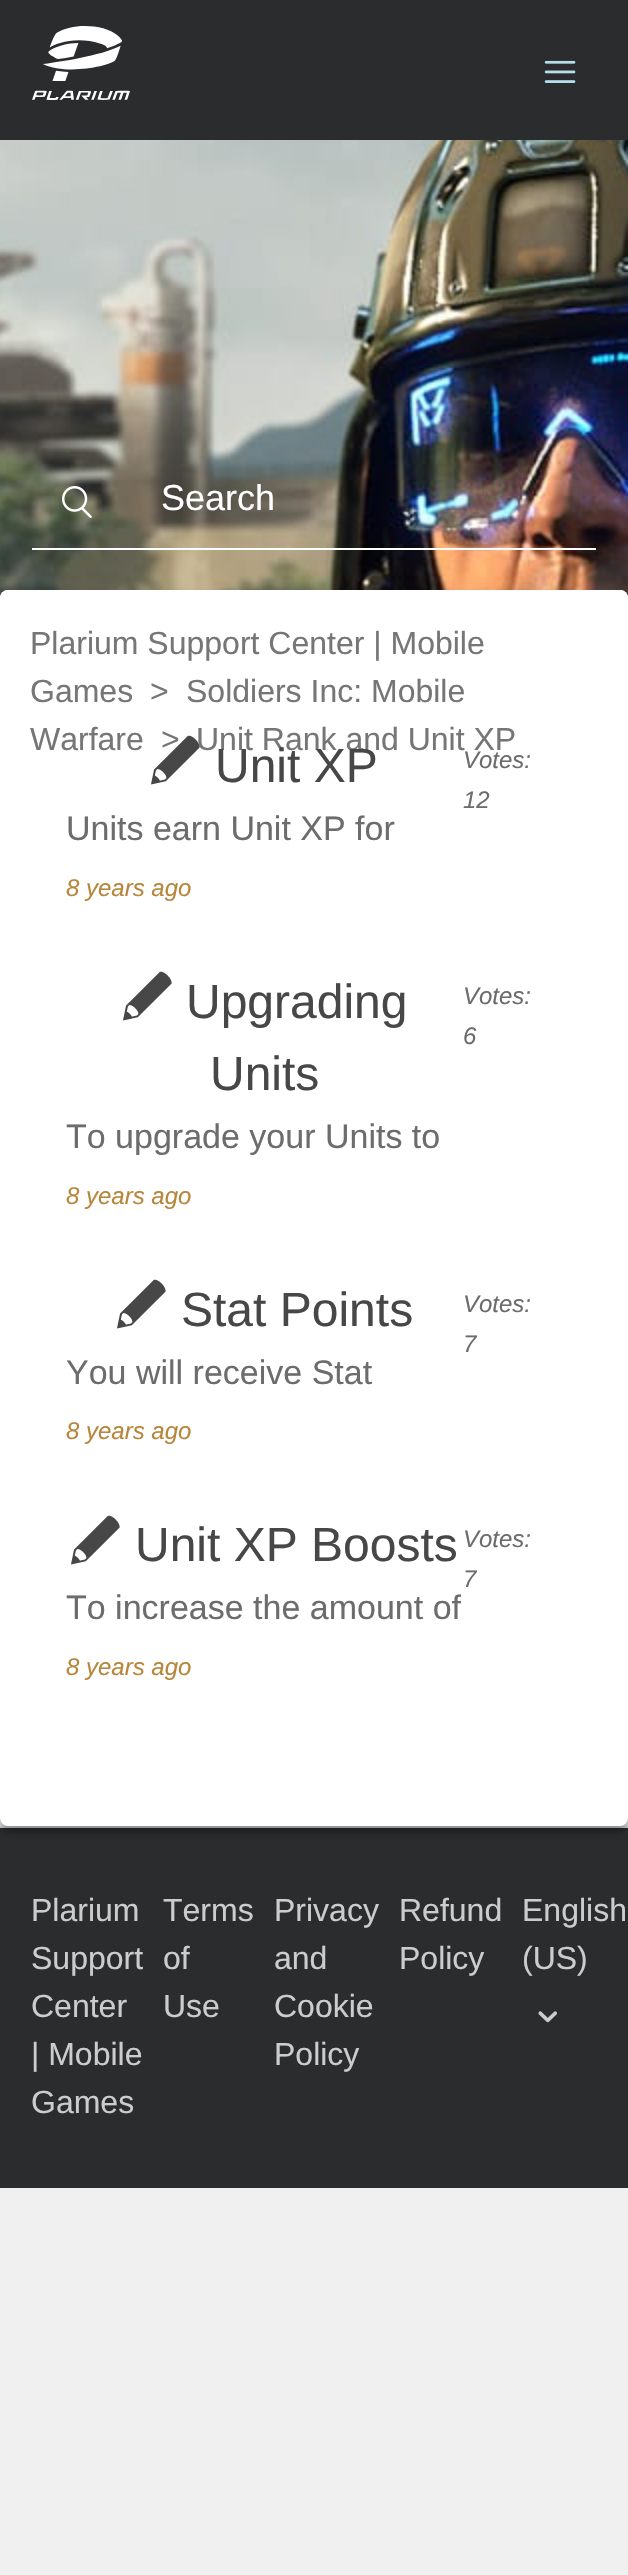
void draw(SkCanvas* canvas) {
	SkPaint paint;
	paint.setAntiAlias(true);
	canvas->clear(0xfff0f0f0);
	paint.setColor(0xff2b2c2e);
	canvas->drawRect(SkRect::MakeXYWH(0, 0, 628, 140), paint);
	canvas->drawImageRect(SkImages::DeferredFromEncodedData(SkData::MakeFromFileName("img1.png")), SkRect::MakeXYWH(32, 26, 98, 74), SkSamplingOptions());
	canvas->drawImageRect(SkImages::DeferredFromEncodedData(SkData::MakeFromFileName("img2.png")), SkRect::MakeXYWH(544, 60, 32, 23), SkSamplingOptions());
	canvas->drawImageRect(SkImages::DeferredFromEncodedData(SkData::MakeFromFileName("img3.png")), SkRect::MakeXYWH(0, 140, 628, 458), SkSamplingOptions());
	canvas->drawImageRect(SkImages::DeferredFromEncodedData(SkData::MakeFromFileName("img4.png")), SkRect::MakeXYWH(62, 486, 30, 32), SkSamplingOptions());
	paint.setColor(0xffffffff);
	canvas->drawRect(SkRect::MakeXYWH(32, 548, 564, 2), paint);
	SkFont f1(fontMgr->matchFamilyStyle("Liberation Sans", SkFontStyle::Normal()), 36);
	f1.setSubpixel(true);
	canvas->drawString("Search", 161, 510, f1, paint);
	paint.setColor(0xff2b2c2e);
	canvas->drawRect(SkRect::MakeXYWH(0, 1828, 628, 360), paint);
	paint.setColor(0xffdddddd);
	canvas->drawRect(SkRect::MakeXYWH(0, 1826, 628, 2), paint);
	paint.setColor(0x29000000);
	paint.setMaskFilter(SkMaskFilter::MakeBlur(kNormal_SkBlurStyle, 6));
	canvas->drawRoundRect(SkRect::MakeXYWH(0, 596, 628, 1236), 8, 8, paint);
	paint.setMaskFilter(nullptr);
	paint.setColor(0x3b000000);
	paint.setMaskFilter(SkMaskFilter::MakeBlur(kNormal_SkBlurStyle, 3));
	canvas->drawRoundRect(SkRect::MakeXYWH(0, 596, 628, 1236), 8, 8, paint);
	paint.setMaskFilter(nullptr);
	paint.setColor(0xffffffff);
	canvas->drawRoundRect(SkRect::MakeXYWH(0, 590, 628, 1236), 8, 8, paint);
	canvas->drawRoundRect(SkRect::MakeXYWH(0, 590, 628, 1196), 8, 8, paint);
	SkFont f2(fontMgr->matchFamilyStyle("Liberation Sans", SkFontStyle::Normal()), 32);
	f2.setSubpixel(true);
	paint.setColor(0xff767676);
	canvas->drawString("Plarium Support Center | Mobile", 30, 654, f2, paint);
	canvas->drawString("Games", 30, 702, f2, paint);
	canvas->drawString(">", 150, 702, f2, paint);
	canvas->drawString("Soldiers Inc: Mobile", 186, 702, f2, paint);
	canvas->drawString("Warfare", 30, 750, f2, paint);
	canvas->drawImageRect(SkImages::DeferredFromEncodedData(SkData::MakeFromFileName("img5.png")), SkRect::MakeXYWH(151, 735, 49, 50), SkSamplingOptions());
	canvas->drawString(">", 161, 750, f2, paint);
	canvas->drawString("Unit Rank and Unit XP", 196, 750, f2, paint);
	SkFont f3(fontMgr->matchFamilyStyle("Liberation Sans", SkFontStyle::Normal()), 48);
	f3.setSubpixel(true);
	paint.setColor(0xff474747);
	canvas->drawString("Unit XP", 215, 782, f3, paint);
	SkFont f4(fontMgr->matchFamilyStyle("Liberation Sans", SkFontStyle::Normal()), 34);
	f4.setSubpixel(true);
	paint.setColor(0xff6c6c6c);
	canvas->drawString("Units earn Unit XP for", 66, 840, f4, paint);
	SkFont f5(fontMgr->matchFamilyStyle("Liberation Sans", SkFontStyle::Italic()), 24);
	f5.setSubpixel(true);
	paint.setColor(0xffb8863a);
	canvas->drawString("8 years ago", 66, 896, f5, paint);
	paint.setColor(0xff6c6c6c);
	canvas->drawString("Votes:", 463, 768, f5, paint);
	canvas->drawString("12", 463, 808, f5, paint);
	canvas->drawImageRect(SkImages::DeferredFromEncodedData(SkData::MakeFromFileName("img5.png")), SkRect::MakeXYWH(123, 971, 49, 50), SkSamplingOptions());
	paint.setColor(0xff474747);
	canvas->drawString("Upgrading", 186, 1018, f3, paint);
	canvas->drawString("Units", 210, 1090, f3, paint);
	paint.setColor(0xff6c6c6c);
	canvas->drawString("To upgrade your Units to", 66, 1148, f4, paint);
	paint.setColor(0xffb8863a);
	canvas->drawString("8 years ago", 66, 1204, f5, paint);
	paint.setColor(0xff6c6c6c);
	canvas->drawString("Votes:", 463, 1004, f5, paint);
	canvas->drawString("6", 463, 1044, f5, paint);
	canvas->drawImageRect(SkImages::DeferredFromEncodedData(SkData::MakeFromFileName("img5.png")), SkRect::MakeXYWH(117, 1279, 49, 50), SkSamplingOptions());
	paint.setColor(0xff474747);
	canvas->drawString("Stat Points", 181, 1326, f3, paint);
	paint.setColor(0xff6c6c6c);
	canvas->drawString("You will receive Stat", 66, 1384, f4, paint);
	paint.setColor(0xffb8863a);
	canvas->drawString("8 years ago", 66, 1439, f5, paint);
	paint.setColor(0xff6c6c6c);
	canvas->drawString("Votes:", 463, 1312, f5, paint);
	canvas->drawString("7", 463, 1352, f5, paint);
	canvas->drawImageRect(SkImages::DeferredFromEncodedData(SkData::MakeFromFileName("img5.png")), SkRect::MakeXYWH(71, 1515, 49, 50), SkSamplingOptions());
	paint.setColor(0xff474747);
	canvas->drawString("Unit XP Boosts", 135, 1561, f3, paint);
	paint.setColor(0xff6c6c6c);
	canvas->drawString("To increase the amount of", 66, 1619, f4, paint);
	paint.setColor(0xffb8863a);
	canvas->drawString("8 years ago", 66, 1675, f5, paint);
	paint.setColor(0xff6c6c6c);
	canvas->drawString("Votes:", 463, 1547, f5, paint);
	canvas->drawString("7", 463, 1587, f5, paint);
	paint.setColor(0xffcccccc);
	canvas->drawString("Plarium", 31, 1921, f2, paint);
	canvas->drawString("Support", 31, 1969, f2, paint);
	canvas->drawString("Center", 31, 2017, f2, paint);
	canvas->drawString("| Mobile", 31, 2065, f2, paint);
	canvas->drawString("Games", 31, 2113, f2, paint);
	canvas->drawString("Terms", 163, 1921, f2, paint);
	canvas->drawString("of", 163, 1969, f2, paint);
	canvas->drawString("Use", 163, 2017, f2, paint);
	canvas->drawString("Privacy", 274, 1921, f2, paint);
	canvas->drawString("and", 274, 1969, f2, paint);
	canvas->drawString("Cookie", 274, 2017, f2, paint);
	canvas->drawString("Policy", 274, 2065, f2, paint);
	canvas->drawString("Refund", 399, 1921, f2, paint);
	canvas->drawString("Policy", 399, 1969, f2, paint);
	canvas->drawString("English", 522, 1921, f2, paint);
	canvas->drawString("(US)", 522, 1969, f2, paint);
	canvas->drawImageRect(SkImages::DeferredFromEncodedData(SkData::MakeFromFileName("img6.png")), SkRect::MakeXYWH(538, 2011, 19, 12), SkSamplingOptions());
}
